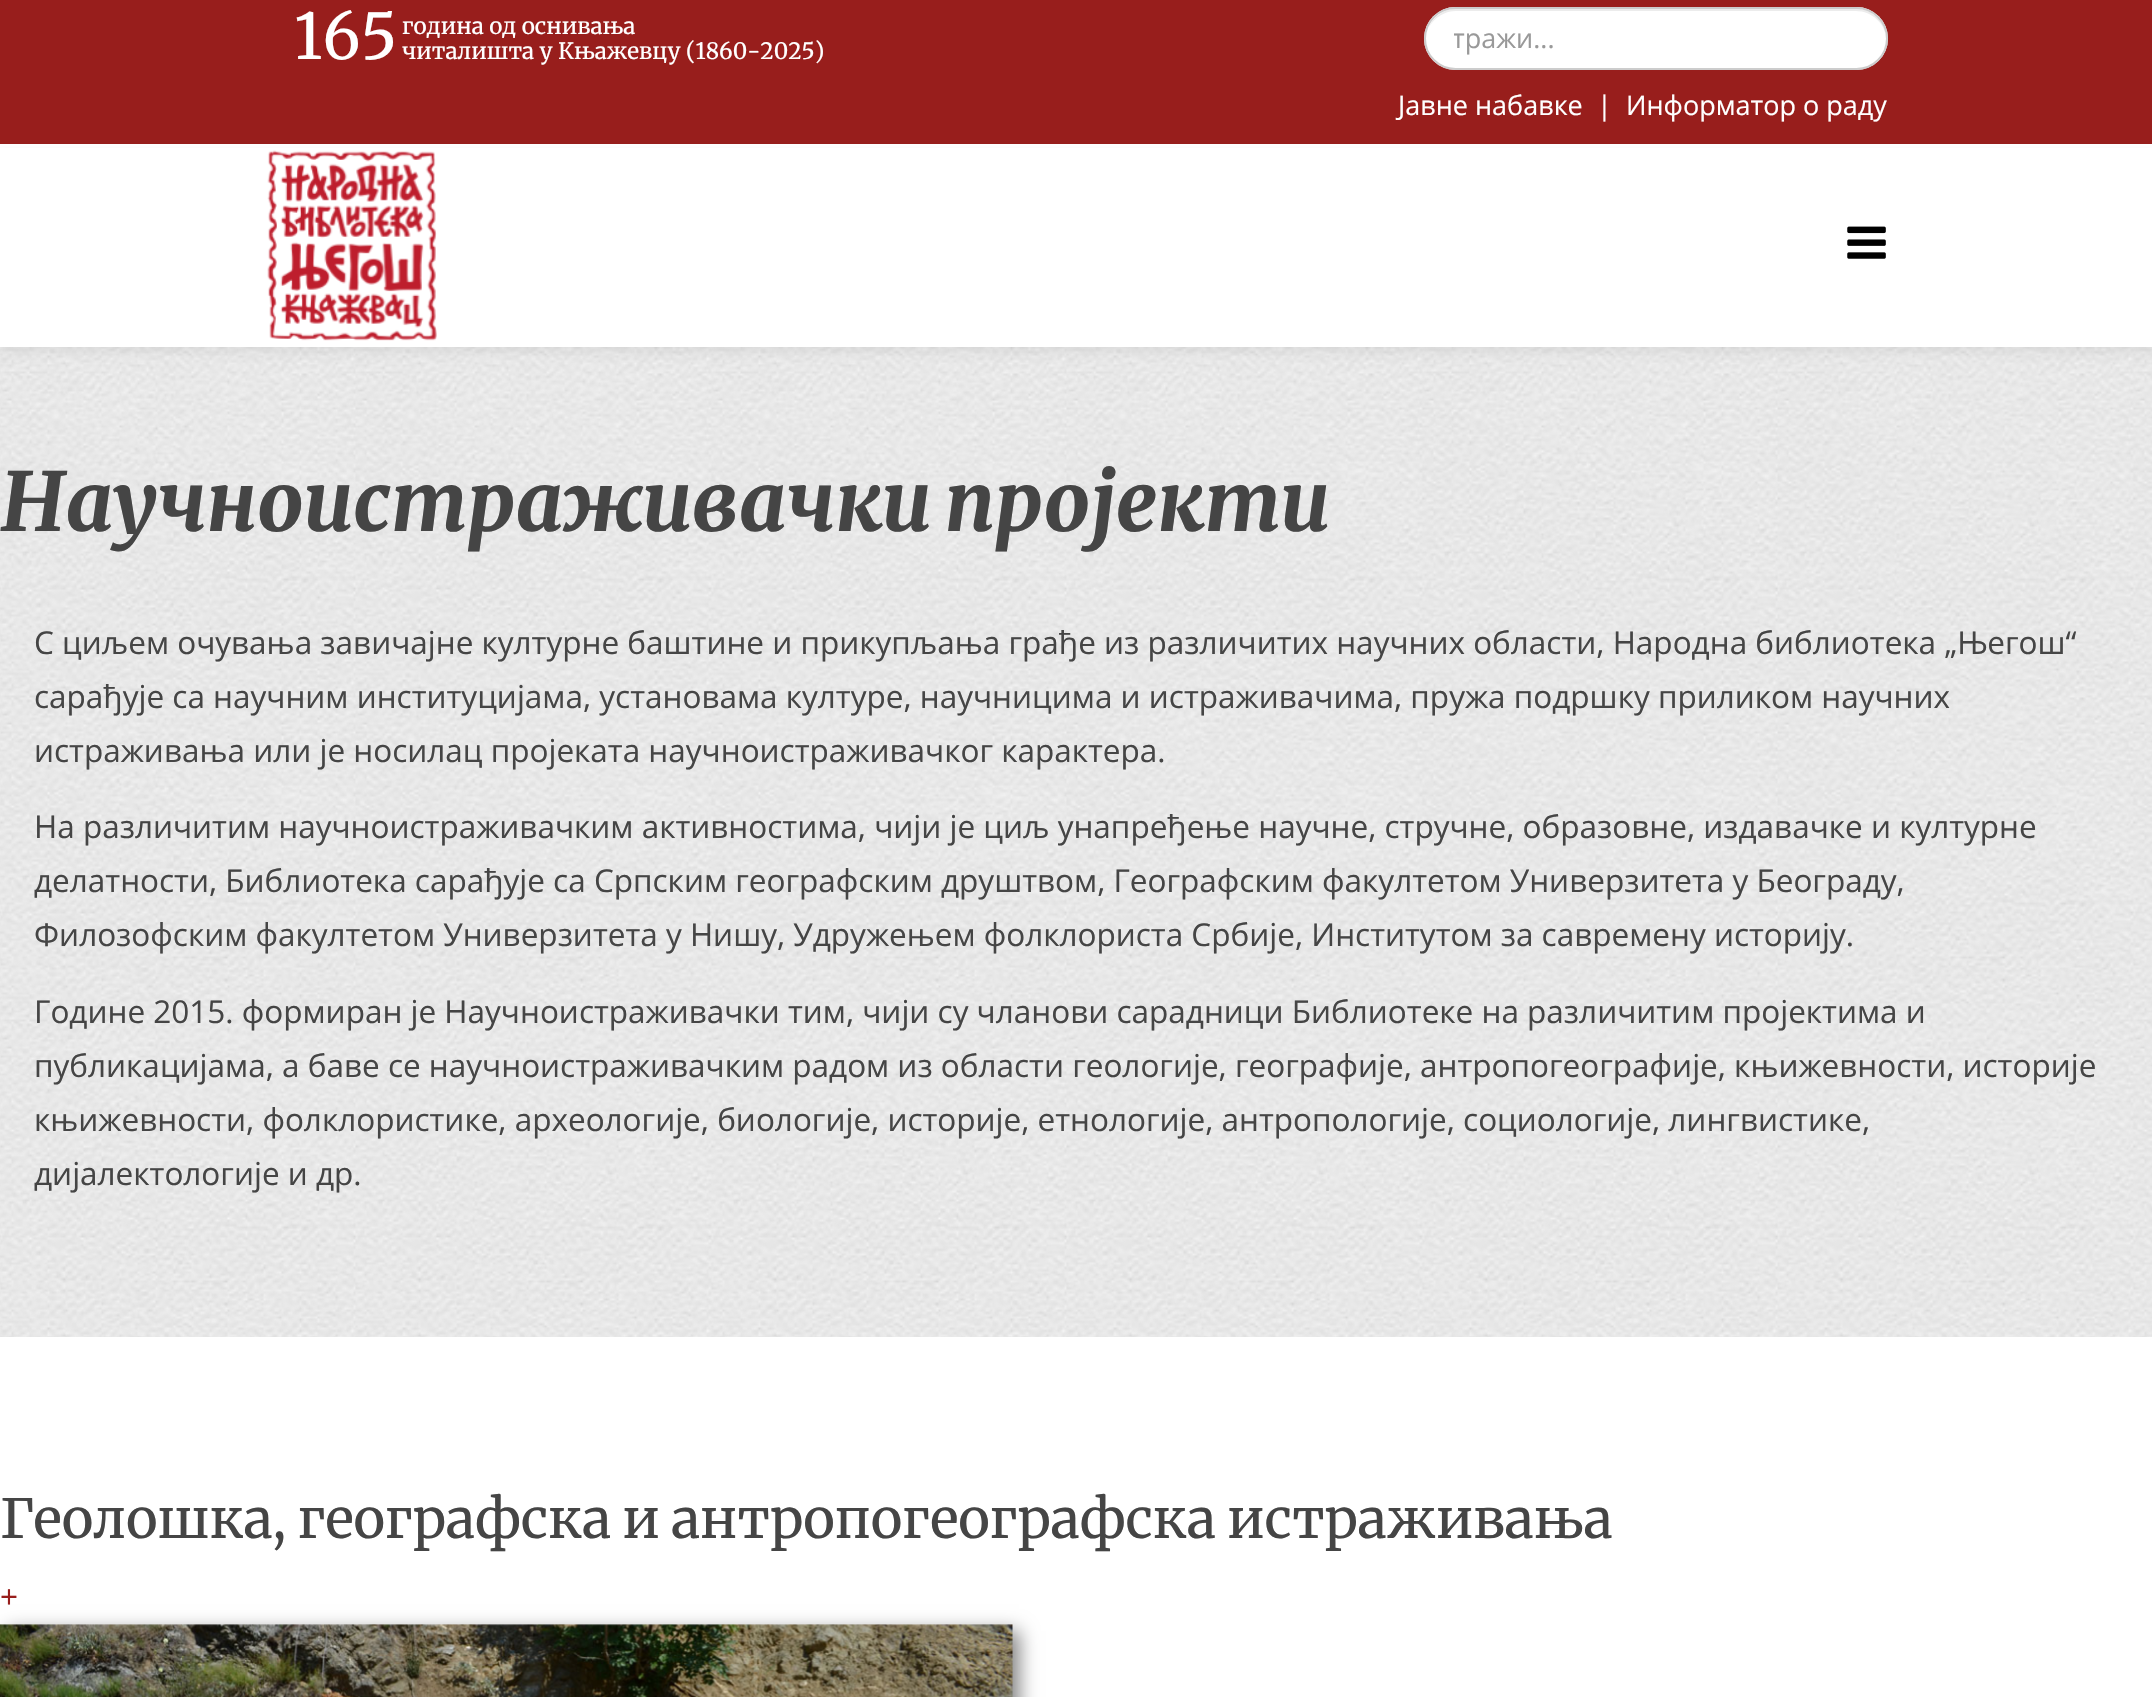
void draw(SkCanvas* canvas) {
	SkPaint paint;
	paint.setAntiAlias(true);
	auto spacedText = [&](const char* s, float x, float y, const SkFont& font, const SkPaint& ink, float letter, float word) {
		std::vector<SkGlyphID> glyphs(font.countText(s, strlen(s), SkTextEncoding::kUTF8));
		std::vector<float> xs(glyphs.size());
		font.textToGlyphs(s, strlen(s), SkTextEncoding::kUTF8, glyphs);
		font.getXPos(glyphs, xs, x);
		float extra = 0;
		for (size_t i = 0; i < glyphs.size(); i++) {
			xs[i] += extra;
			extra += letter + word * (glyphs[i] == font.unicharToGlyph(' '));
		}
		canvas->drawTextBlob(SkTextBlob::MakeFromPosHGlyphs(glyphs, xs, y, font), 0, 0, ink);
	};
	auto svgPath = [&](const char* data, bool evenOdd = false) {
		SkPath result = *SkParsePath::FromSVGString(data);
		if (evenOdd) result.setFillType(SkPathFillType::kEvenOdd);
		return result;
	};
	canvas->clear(0xffffffff);
	paint.setColor(0xff981e1c);
	canvas->drawRect(SkRect::MakeXYWH(0, 0, 2152, 144), paint);
	SkFont f1(fontMgr->matchFamilyStyle("Merriweather", SkFontStyle::Normal()), 63);
	f1.setSubpixel(true);
	paint.setColor(0xffffffff);
	canvas->drawString("165", 294, 59, f1, paint);
	SkFont f2(fontMgr->matchFamilyStyle("Merriweather", SkFontStyle::Normal()), 22.5);
	f2.setSubpixel(true);
	canvas->drawString("година од оснивања", 402, 34, f2, paint);
	canvas->drawString("читалишта у Књажевцу (1860-2025)", 402, 59, f2, paint);
	canvas->drawRoundRect(SkRect::MakeXYWH(1424, 7, 464, 63), 31.5, 31.5, paint);
	paint.setColor(0xffececec);
	canvas->drawPath(svgPath("M1456 11H1856C1872 11 1886 24 1886 39V38C1886 22 1873 9 1856 9H1456C1444 9 1434 16 1429 27C1435 17 1445 11 1456 11Z"), paint);
	paint.setStroke(true);
	paint.setStrokeWidth(2);
	paint.setColor(0xffcccccc);
	canvas->drawRoundRect(SkRect::MakeXYWH(1425, 8, 462, 61), 30.5, 30.5, paint);
	canvas->save();
	canvas->clipRect(SkRect::MakeXYWH(1454, 20, 405, 39));
	SkFont f3(fontMgr->matchFamilyStyle("Open Sans", SkFontStyle::Normal()), 27);
	f3.setSubpixel(true);
	paint.setStroke(false);
	paint.setColor(0xff999999);
	canvas->drawString("тражи...", 1452, 48, f3, paint);
	canvas->restore();
	paint.setColor(0xffffffff);
	canvas->drawString("Јавне набавке", 1398, 115, f3, paint);
	canvas->drawString("|", 1597, 115, f3, paint);
	canvas->drawString("Информатор о раду", 1626, 115, f3, paint);
	canvas->drawImageRect(SkImages::DeferredFromEncodedData(SkData::MakeFromFileName("img3.png")), SkRect::MakeXYWH(0, 347, 2152, 990), SkSamplingOptions());
	paint.setColor(0x0d000000);
	paint.setMaskFilter(SkMaskFilter::MakeBlur(kNormal_SkBlurStyle, 3.5));
	canvas->drawRect(SkRect::MakeXYWH(0, 151, 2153, 202), paint);
	paint.setMaskFilter(nullptr);
	paint.setColor(0xffffffff);
	canvas->drawRect(SkRect::MakeXYWH(0, 148, 2152, 199), paint);
	canvas->drawImageRect(SkImages::DeferredFromEncodedData(SkData::MakeFromFileName("img1.png")), SkRect::MakeXYWH(267, 150, 170, 191), SkSamplingOptions());
	canvas->drawImageRect(SkImages::DeferredFromEncodedData(SkData::MakeFromFileName("img2.png")), SkRect::MakeXYWH(1847, 226, 39, 33), SkSamplingOptions());
	SkFont f4(fontMgr->matchFamilyStyle("Merriweather", SkFontStyle(800, SkFontStyle::kNormal_Width, SkFontStyle::kItalic_Slant)), 81);
	f4.setSubpixel(true);
	paint.setColor(0xff454545);
	spacedText("Научноистраживачки пројекти", 0, 531, f4, paint, 0, -5);
	SkFont f5(fontMgr->matchFamilyStyle("Open Sans", SkFontStyle::Normal()), 31.5);
	f5.setSubpixel(true);
	canvas->drawString("С циљем очувања завичајне културне баштине и прикупљања грађе из различитих научних области, Народна библиотека „Његош“", 34, 654, f5, paint);
	canvas->drawString("сарађује са научним институцијама, установама културе, научницима и истраживачима, пружа подршку приликом научних", 34, 708, f5, paint);
	canvas->drawString("истраживања или је носилац пројеката научноистраживачког карактера.", 34, 762, f5, paint);
	canvas->drawString("На различитим научноистраживачким активностима, чији је циљ унапређење научне, стручне, образовне, издавачке и културне", 34, 838, f5, paint);
	canvas->drawString("делатности, Библиотека сарађује са Српским географским друштвом, Географским факултетом Универзитета у Београду,", 34, 892, f5, paint);
	canvas->drawString("Филозофским факултетом Универзитета у Нишу, Удружењем фолклориста Србије, Институтом за савремену историју.", 34, 946, f5, paint);
	canvas->drawString("Године 2015. формиран је Научноистраживачки тим, чији су чланови сарадници Библиотеке на различитим пројектима и", 34, 1023, f5, paint);
	canvas->drawString("публикацијама, а баве се научноистраживачким радом из области геологије, географије, антропогеографије, књижевности, историје", 34, 1077, f5, paint);
	canvas->drawString("књижевности, фолклористике, археологије, биологије, историје, етнологије, антропологије, социологије, лингвистике,", 34, 1131, f5, paint);
	canvas->drawString("дијалектологије и др.", 34, 1185, f5, paint);
	SkFont f6(fontMgr->matchFamilyStyle("Merriweather", SkFontStyle::Normal()), 54);
	f6.setSubpixel(true);
	spacedText("Геолошка, географска и антропогеографска истраживања", 0, 1538, f6, paint, 0, -1.5);
	paint.setColor(0xff808080);
	paint.setMaskFilter(SkMaskFilter::MakeBlur(kNormal_SkBlurStyle, 9));
	canvas->drawRect(SkRect::MakeXYWH(7, 1631, 1012, 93), paint);
	paint.setMaskFilter(nullptr);
	paint.setColor(0xff981e1c);
	canvas->drawString("+", 0, 1608, f5, paint);
	canvas->drawImageRect(SkImages::DeferredFromEncodedData(SkData::MakeFromFileName("img4.png")), SkRect::MakeXYWH(0, 1624, 1013, 73), SkSamplingOptions());
}
